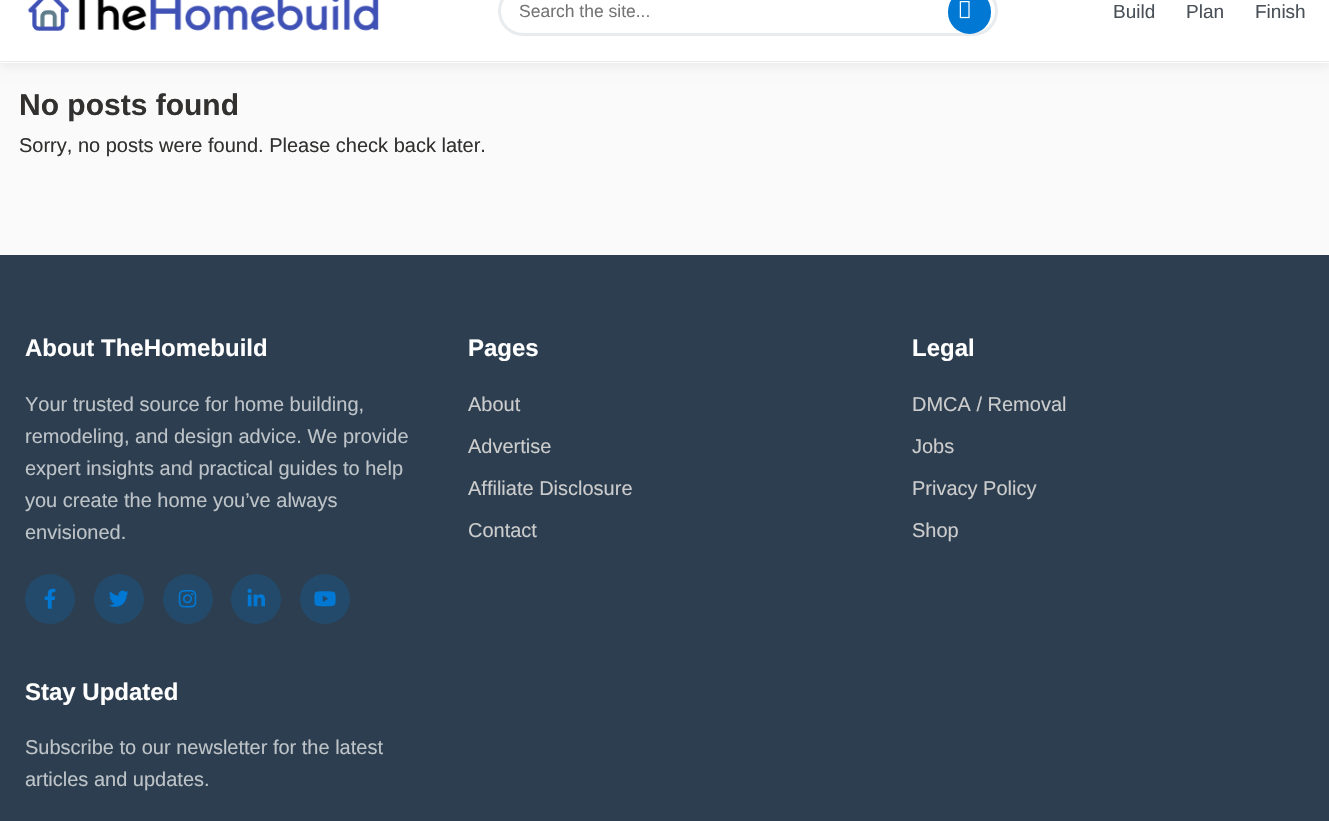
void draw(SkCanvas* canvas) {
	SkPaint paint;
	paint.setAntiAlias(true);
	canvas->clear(0xfffafafa);
	paint.setColor(0x14000000);
	paint.setMaskFilter(SkMaskFilter::MakeBlur(kNormal_SkBlurStyle, 6));
	canvas->drawRect(SkRect::MakeXYWH(0, -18, 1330, 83), paint);
	paint.setMaskFilter(nullptr);
	paint.setColor(0xffffffff);
	canvas->drawRect(SkRect::MakeXYWH(0, 0, 1329, 63), paint);
	paint.setColor(0xffe9ecef);
	canvas->drawRect(SkRect::MakeXYWH(0, 61, 1329, 1), paint);
	canvas->drawImageRect(SkImages::DeferredFromEncodedData(SkData::MakeFromFileName("img1.png")), SkRect::MakeXYWH(27, 0, 352, 31), SkSamplingOptions());
	paint.setStroke(true);
	paint.setStrokeWidth(3);
	canvas->drawRoundRect(SkRect::MakeXYWH(499.5, -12.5, 497, 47), 23.5, 23.5, paint);
	SkFont f1(fontMgr->matchFamilyStyle("Liberation Sans", SkFontStyle::Normal()), 17.5);
	f1.setSubpixel(true);
	paint.setStroke(false);
	paint.setColor(0xff757575);
	canvas->drawString("Search the site...", 519, 17, f1, paint);
	paint.setColor(0xff0078d4);
	canvas->drawRoundRect(SkRect::MakeXYWH(948, -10, 43, 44), 21.5, 21.5, paint);
	canvas->drawImageRect(SkImages::DeferredFromEncodedData(SkData::MakeFromFileName("img2.png")), SkRect::MakeXYWH(959, 1, 11, 18), SkSamplingOptions());
	SkFont f2(fontMgr->matchFamilyStyle("Liberation Sans", SkFontStyle::Normal()), 19);
	f2.setSubpixel(true);
	paint.setColor(0xff495057);
	canvas->drawString("Build", 1113, 18, f2, paint);
	canvas->drawString("Plan", 1186, 18, f2, paint);
	canvas->drawString("Finish", 1255, 18, f2, paint);
	SkFont f3(fontMgr->matchFamilyStyle("Liberation Sans", SkFontStyle::Bold()), 30);
	f3.setSubpixel(true);
	paint.setColor(0xff323130);
	canvas->drawString("No posts found", 19, 115, f3, paint);
	SkFont f4(fontMgr->matchFamilyStyle("Liberation Sans", SkFontStyle::Normal()), 20);
	f4.setSubpixel(true);
	canvas->drawString("Sorry, no posts were found. Please check back later.", 19, 152, f4, paint);
	paint.setColor(0xff2c3e50);
	canvas->drawRect(SkRect::MakeXYWH(0, 255, 1329, 566), paint);
	SkFont f5(fontMgr->matchFamilyStyle("Liberation Sans", SkFontStyle::Bold()), 24);
	f5.setSubpixel(true);
	paint.setColor(0xffffffff);
	canvas->drawString("About TheHomebuild", 25, 356, f5, paint);
	paint.setColor(0xffbdc3c7);
	canvas->drawString("Your trusted source for home building,", 25, 411, f4, paint);
	canvas->drawString("remodeling, and design advice. We provide", 25, 443, f4, paint);
	canvas->drawString("expert insights and practical guides to help", 25, 475, f4, paint);
	canvas->drawString("you create the home you’ve always", 25, 507, f4, paint);
	canvas->drawString("envisioned.", 25, 539, f4, paint);
	paint.setColor(0xff234a6a);
	canvas->drawCircle(50, 599, 25, paint);
	canvas->drawImageRect(SkImages::DeferredFromEncodedData(SkData::MakeFromFileName("img3.png")), SkRect::MakeXYWH(44, 588, 12, 21), SkSamplingOptions());
	canvas->drawCircle(119, 599, 25, paint);
	canvas->drawImageRect(SkImages::DeferredFromEncodedData(SkData::MakeFromFileName("img4.png")), SkRect::MakeXYWH(109, 590, 20, 17), SkSamplingOptions());
	canvas->drawCircle(188, 599, 25, paint);
	canvas->drawImageRect(SkImages::DeferredFromEncodedData(SkData::MakeFromFileName("img5.png")), SkRect::MakeXYWH(178, 590, 19, 18), SkSamplingOptions());
	canvas->drawCircle(256, 599, 25, paint);
	canvas->drawImageRect(SkImages::DeferredFromEncodedData(SkData::MakeFromFileName("img6.png")), SkRect::MakeXYWH(247, 588, 18, 19), SkSamplingOptions());
	canvas->drawCircle(325, 599, 25, paint);
	canvas->drawImageRect(SkImages::DeferredFromEncodedData(SkData::MakeFromFileName("img7.png")), SkRect::MakeXYWH(314, 591, 22, 16), SkSamplingOptions());
	paint.setColor(0xffffffff);
	canvas->drawString("Pages", 468, 356, f5, paint);
	paint.setColor(0xffcccccc);
	canvas->drawString("About", 468, 411, f4, paint);
	canvas->drawString("Advertise", 468, 453, f4, paint);
	canvas->drawString("Affiliate Disclosure", 468, 495, f4, paint);
	canvas->drawString("Contact", 468, 537, f4, paint);
	paint.setColor(0xffffffff);
	canvas->drawString("Legal", 912, 356, f5, paint);
	paint.setColor(0xffcccccc);
	canvas->drawString("DMCA / Removal", 912, 411, f4, paint);
	canvas->drawString("Jobs", 912, 453, f4, paint);
	canvas->drawString("Privacy Policy", 912, 495, f4, paint);
	canvas->drawString("Shop", 912, 537, f4, paint);
	paint.setColor(0xffffffff);
	canvas->drawString("Stay Updated", 25, 700, f5, paint);
	paint.setColor(0xffbdc3c7);
	canvas->drawString("Subscribe to our newsletter for the latest", 25, 754, f4, paint);
	canvas->drawString("articles and updates.", 25, 786, f4, paint);
}
